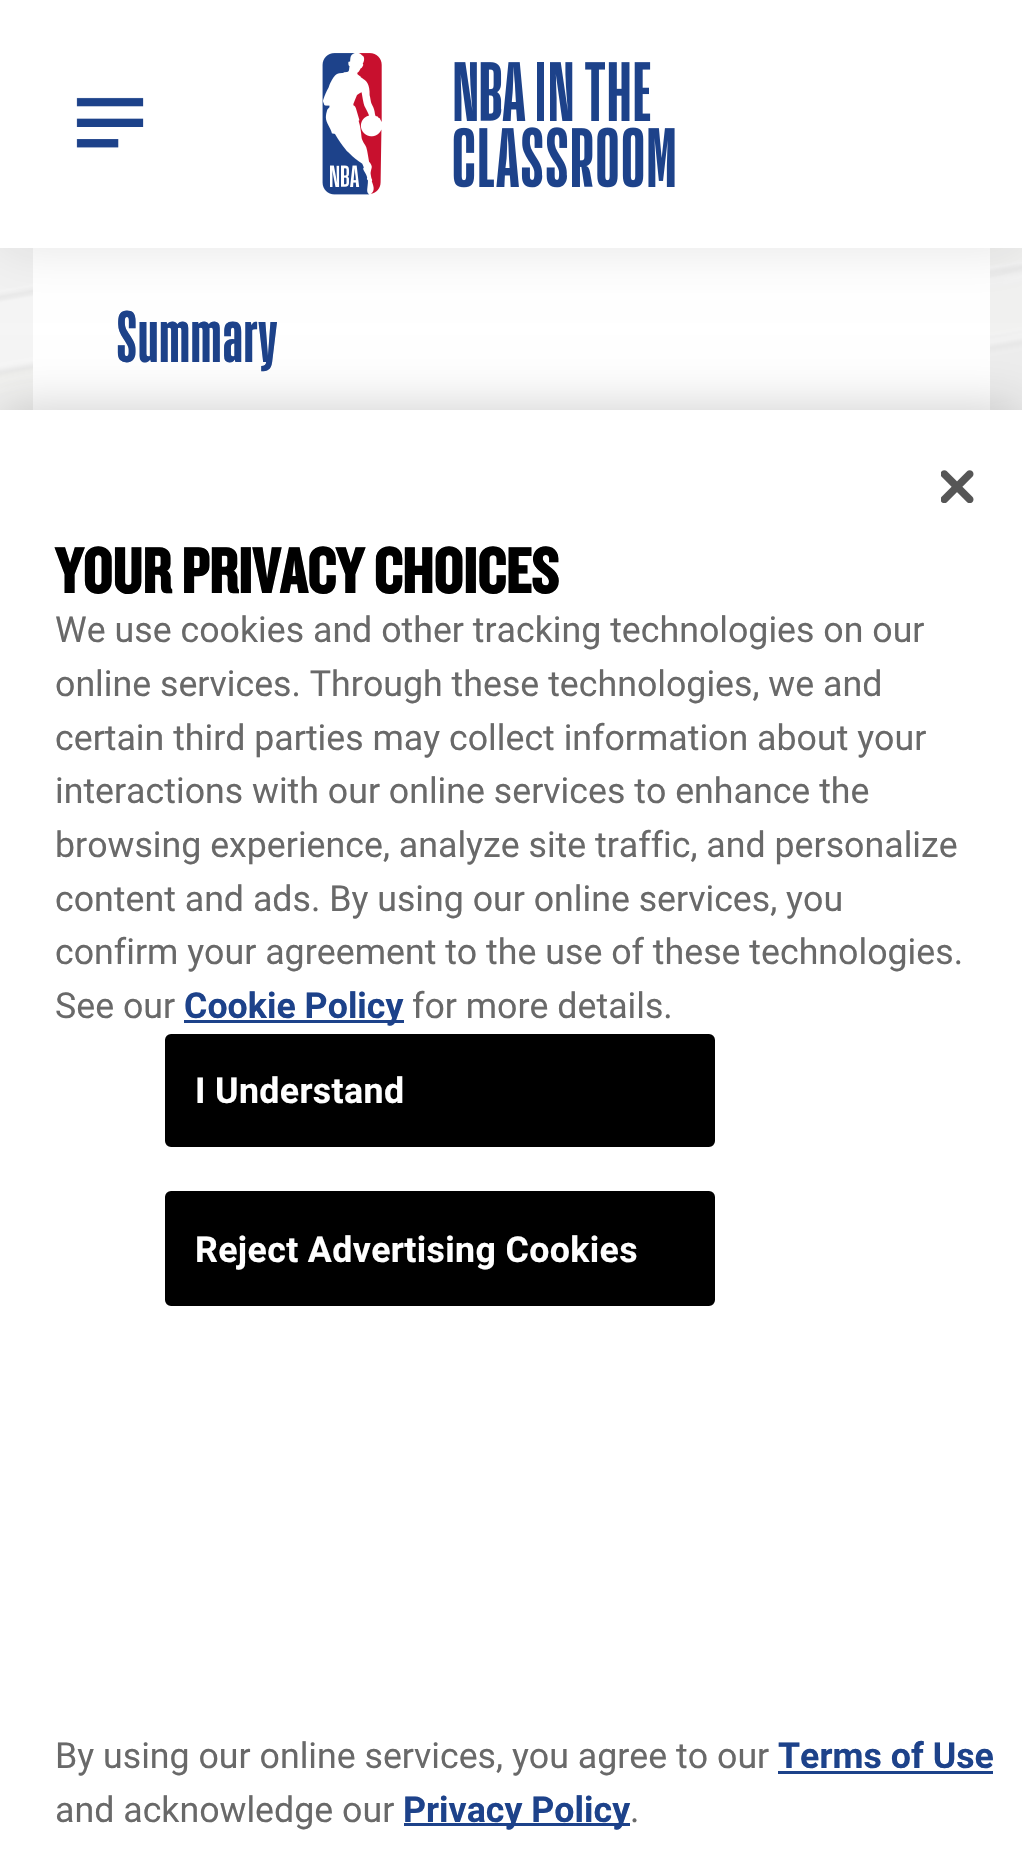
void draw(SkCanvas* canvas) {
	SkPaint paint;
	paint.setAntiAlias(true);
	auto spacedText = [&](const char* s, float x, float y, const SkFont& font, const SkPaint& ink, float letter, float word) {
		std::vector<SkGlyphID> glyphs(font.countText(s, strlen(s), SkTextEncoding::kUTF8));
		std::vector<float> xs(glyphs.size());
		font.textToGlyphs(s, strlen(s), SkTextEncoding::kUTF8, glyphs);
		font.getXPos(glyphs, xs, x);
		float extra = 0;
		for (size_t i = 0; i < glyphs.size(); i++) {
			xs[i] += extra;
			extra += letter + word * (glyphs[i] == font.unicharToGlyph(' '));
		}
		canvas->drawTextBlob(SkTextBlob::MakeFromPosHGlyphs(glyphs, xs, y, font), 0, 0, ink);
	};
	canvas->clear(0xffffffff);
	canvas->drawImageRect(SkImages::DeferredFromEncodedData(SkData::MakeFromFileName("img3.png")), SkRect::MakeXYWH(0, 248, 1022, 162), SkSamplingOptions());
	paint.setColor(0xffffffff);
	canvas->drawRect(SkRect::MakeXYWH(33, 248, 957, 162), paint);
	paint.setColor(0x1a000000);
	paint.setMaskFilter(SkMaskFilter::MakeBlur(kNormal_SkBlurStyle, 25));
	canvas->drawRect(SkRect::MakeXYWH(0, 0, 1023, 248), paint);
	paint.setMaskFilter(nullptr);
	paint.setColor(0xffffffff);
	canvas->drawRect(SkRect::MakeXYWH(0, 0, 1022, 248), paint);
	canvas->drawImageRect(SkImages::DeferredFromEncodedData(SkData::MakeFromFileName("img1.png")), SkRect::MakeXYWH(76, 97, 68, 51), SkSamplingOptions());
	canvas->drawImageRect(SkImages::DeferredFromEncodedData(SkData::MakeFromFileName("img2.png")), SkRect::MakeXYWH(322, 53, 353, 142), SkSamplingOptions());
	SkFont f1(fontMgr->matchFamilyStyle("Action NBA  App", SkFontStyle::Bold()), 71.5);
	f1.setSubpixel(true);
	paint.setColor(0xff1d428a);
	canvas->drawString("Summary", 116, 362, f1, paint);
	paint.setColor(0x33000000);
	paint.setMaskFilter(SkMaskFilter::MakeBlur(kNormal_SkBlurStyle, 25));
	canvas->drawRect(SkRect::MakeXYWH(0, 410, 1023, 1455), paint);
	paint.setMaskFilter(nullptr);
	paint.setColor(0xffffffff);
	canvas->drawRect(SkRect::MakeXYWH(0, 410, 1022, 1452), paint);
	canvas->drawImageRect(SkImages::DeferredFromEncodedData(SkData::MakeFromFileName("img4.png")), SkRect::MakeXYWH(941, 470, 33, 33), SkSamplingOptions());
	SkFont f2(fontMgr->matchFamilyStyle("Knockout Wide", SkFontStyle::Bold()), 66);
	f2.setSubpixel(true);
	paint.setColor(0xff000000);
	canvas->drawString("YOUR PRIVACY CHOICES", 55, 593, f2, paint);
	SkFont f3(fontMgr->matchFamilyStyle("Roboto", SkFontStyle::Normal()), 35.75);
	f3.setSubpixel(true);
	paint.setColor(0xff696969);
	canvas->drawString("We use cookies and other tracking technologies on our", 55, 642, f3, paint);
	canvas->drawString("online services. Through these technologies, we and", 55, 696, f3, paint);
	canvas->drawString("certain third parties may collect information about your", 55, 750, f3, paint);
	canvas->drawString("interactions with our online services to enhance the", 55, 803, f3, paint);
	canvas->drawString("browsing experience, analyze site traffic, and personalize", 55, 857, f3, paint);
	canvas->drawString("content and ads. By using our online services, you", 55, 911, f3, paint);
	canvas->drawString("confirm your agreement to the use of these technologies.", 55, 964, f3, paint);
	canvas->drawString("See our", 55, 1018, f3, paint);
	paint.setColor(0xff1d428a);
	canvas->drawRect(SkRect::MakeXYWH(184, 1020, 220, 3), paint);
	SkFont f4(fontMgr->matchFamilyStyle("Roboto", SkFontStyle::Bold()), 35.75);
	f4.setSubpixel(true);
	canvas->drawString("Cookie Policy", 184, 1018, f4, paint);
	paint.setColor(0xff696969);
	canvas->drawString("for more details.", 412, 1018, f3, paint);
	canvas->drawString("By using our online services, you agree to our", 55, 1768, f3, paint);
	paint.setColor(0xff1d428a);
	canvas->drawString("Terms of Use", 778, 1768, f4, paint);
	canvas->drawRect(SkRect::MakeXYWH(778, 1771, 215, 3), paint);
	paint.setColor(0xff696969);
	canvas->drawString("and acknowledge our", 55, 1822, f3, paint);
	paint.setColor(0xff1d428a);
	canvas->drawRect(SkRect::MakeXYWH(404, 1823, 226, 3), paint);
	canvas->drawString("Privacy Policy", 403, 1822, f4, paint);
	paint.setColor(0xff696969);
	canvas->drawString(".", 630, 1822, f3, paint);
	paint.setColor(0xff000000);
	canvas->drawRoundRect(SkRect::MakeXYWH(166.5, 1035.5, 547, 110), 4.5, 4.5, paint);
	paint.setStroke(true);
	paint.setStrokeWidth(3);
	canvas->drawRoundRect(SkRect::MakeXYWH(166.5, 1035.5, 547, 110), 4.5, 4.5, paint);
	paint.setStroke(false);
	paint.setColor(0xffffffff);
	spacedText("I Understand", 195, 1103, f4, paint, 0.35, 0);
	paint.setColor(0xff000000);
	canvas->drawRoundRect(SkRect::MakeXYWH(166.5, 1192.5, 547, 112), 4.5, 4.5, paint);
	paint.setStroke(true);
	canvas->drawRoundRect(SkRect::MakeXYWH(166.5, 1192.5, 547, 112), 4.5, 4.5, paint);
	paint.setStroke(false);
	paint.setColor(0xffffffff);
	spacedText("Reject Advertising Cookies", 195, 1262, f4, paint, 0.35, 0);
}
